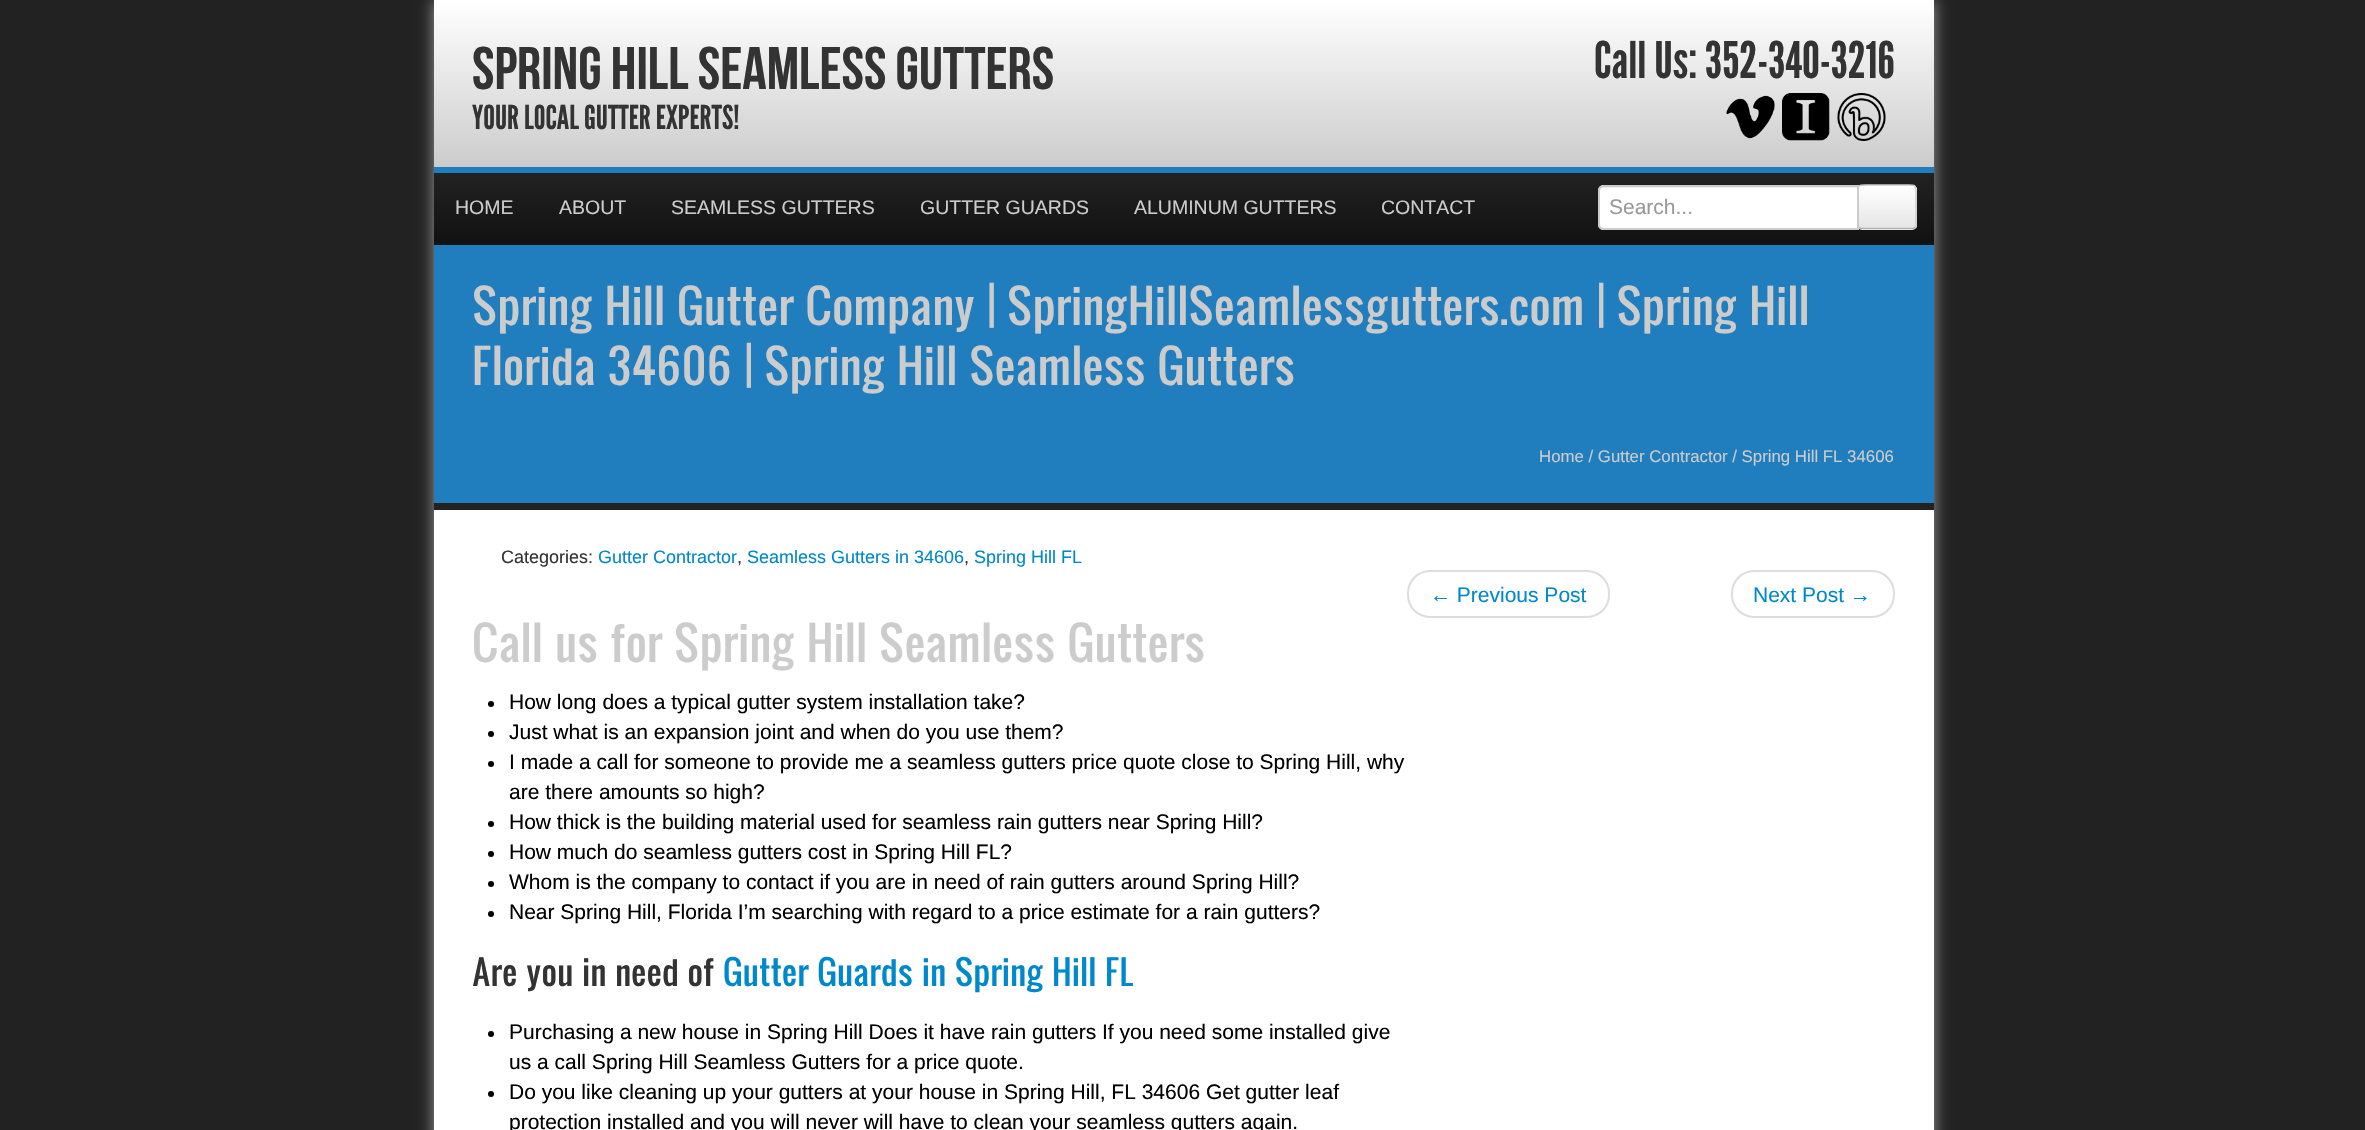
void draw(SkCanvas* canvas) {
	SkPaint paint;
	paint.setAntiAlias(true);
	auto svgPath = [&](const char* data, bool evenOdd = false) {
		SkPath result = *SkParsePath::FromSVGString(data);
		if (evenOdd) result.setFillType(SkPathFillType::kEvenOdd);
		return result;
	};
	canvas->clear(0xff222222);
	paint.setColor(0xff999999);
	paint.setMaskFilter(SkMaskFilter::MakeBlur(kNormal_SkBlurStyle, 7.5));
	canvas->drawRect(SkRect::MakeXYWH(434, 0, 1500, 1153), paint);
	paint.setMaskFilter(nullptr);
	paint.setColor(0xffffffff);
	canvas->drawRect(SkRect::MakeXYWH(434, 510, 1500, 620), paint);
	{
		const SkColor colors[] = {0xffffffff, 0xffcccccc};
		const float stops[] = {0, 1};
		const SkPoint ends[] = {{1184, 0}, {1184, 167}};
		paint.setShader(SkGradientShader::MakeLinear(ends, colors, stops, 2, SkTileMode::kClamp));
		paint.setAlpha(255);
	}
	canvas->drawRect(SkRect::MakeXYWH(434, 0, 1500, 167), paint);
	SkFont f1(fontMgr->matchFamilyStyle("Bebas Neue", SkFontStyle::Normal()), 60);
	f1.setSubpixel(true);
	paint.setShader(nullptr);
	paint.setColor(0xff333333);
	canvas->drawString("SPRING HILL SEAMLESS GUTTERS", 472, 89, f1, paint);
	SkFont f2(fontMgr->matchFamilyStyle("League Gothic", SkFontStyle::Normal()), 33);
	f2.setSubpixel(true);
	canvas->drawString("YOUR LOCAL GUTTER EXPERTS!", 472, 129, f2, paint);
	SkFont f3(fontMgr->matchFamilyStyle("League Gothic", SkFontStyle::Normal()), 50.5);
	f3.setSubpixel(true);
	canvas->drawString("Call Us: 352-340-3216", 1594, 78, f3, paint);
	canvas->drawImageRect(SkImages::DeferredFromEncodedData(SkData::MakeFromFileName("img1.png")), SkRect::MakeXYWH(1726, 95, 49, 44), SkSamplingOptions());
	canvas->drawImageRect(SkImages::DeferredFromEncodedData(SkData::MakeFromFileName("img2.png")), SkRect::MakeXYWH(1782, 93, 48, 48), SkSamplingOptions());
	canvas->drawImageRect(SkImages::DeferredFromEncodedData(SkData::MakeFromFileName("img3.png")), SkRect::MakeXYWH(1837, 93, 49, 48), SkSamplingOptions());
	{
		const SkColor colors[] = {0xff222222, 0xff111111};
		const float stops[] = {0, 1};
		const SkPoint ends[] = {{1184, 172}, {1184, 245}};
		paint.setShader(SkGradientShader::MakeLinear(ends, colors, stops, 2, SkTileMode::kClamp));
		paint.setAlpha(255);
	}
	canvas->drawRect(SkRect::MakeXYWH(434, 173, 1500, 72), paint);
	paint.setShader(nullptr);
	paint.setColor(0xff207ebe);
	canvas->drawRect(SkRect::MakeXYWH(434, 167, 1500, 6), paint);
	SkFont f4(fontMgr->matchFamilyStyle("Liberation Sans", SkFontStyle::Normal()), 19.5);
	f4.setSubpixel(true);
	paint.setColor(0xffcccccc);
	canvas->drawString("HOME", 455, 214, f4, paint);
	canvas->drawString("ABOUT", 559, 214, f4, paint);
	canvas->drawString("SEAMLESS GUTTERS", 671, 214, f4, paint);
	canvas->drawString("GUTTER GUARDS", 920, 214, f4, paint);
	canvas->drawString("ALUMINUM GUTTERS", 1134, 214, f4, paint);
	canvas->drawString("CONTACT", 1381, 214, f4, paint);
	paint.setColor(0xfff5f5f5);
	canvas->drawRoundRect(SkRect::MakeXYWH(1857, 185, 60, 45), 5, 5, paint);
	canvas->save();
	canvas->clipPath(svgPath("M1862 185H1912C1915 185 1917 187 1917 190V225C1917 228 1915 230 1912 230H1862C1859 230 1857 228 1857 225V190C1857 187 1859 185 1862 185Z"), true);
	{
		const SkColor colors[] = {0xffffffff, 0xffe6e6e6};
		const float stops[] = {0, 1};
		const SkPoint ends[] = {{1887, 186}, {1887, 228}};
		paint.setShader(SkGradientShader::MakeLinear(ends, colors, stops, 2, SkTileMode::kClamp));
		paint.setAlpha(255);
	}
	canvas->drawRect(SkRect::MakeXYWH(1859, 186, 58, 42), paint);
	canvas->restore();
	paint.setStroke(true);
	paint.setStrokeWidth(1.5);
	paint.setShader(nullptr);
	paint.setColor(0xffb3b3b3);
	canvas->drawPath(svgPath("M1915 227.5L1913 228.5H1861L1859 227.5"), paint);
	paint.setStroke(false);
	paint.setColor(0xffffffff);
	canvas->drawPath(svgPath("M1862 188H1912C1914 188 1916 189 1916 190V189C1916 187 1915 186 1913 186H1862C1860 186 1859 187 1859 189Z"), paint);
	paint.setStroke(true);
	paint.setColor(0xffcccccc);
	canvas->drawPath(svgPath("M1859 227.5C1857 225.5 1858 221 1858 219V195C1858 183.5 1858 185 1870 185H1904C1916 185 1916 183.5 1916 195V219C1916 221 1917 225.5 1915 227.5"), paint);
	paint.setStroke(false);
	paint.setColor(0xffffffff);
	canvas->drawPath(svgPath("M1604 185H1859V230H1604C1600.5 230 1598 227.5 1598 224V191C1598 187.5 1600.5 185 1604 185Z"), paint);
	paint.setColor(0xffececec);
	canvas->drawPath(svgPath("M1604 188H1857V186H1604C1601 186 1599 189 1599 192C1599 190 1601 188 1604 188Z"), paint);
	paint.setStroke(true);
	paint.setStrokeWidth(2);
	paint.setColor(0xffcccccc);
	canvas->drawPath(svgPath("M1604 186H1858V229H1604C1601 229 1599 227 1599 224V191C1599 188 1601 186 1604 186Z"), paint);
	SkFont f5(fontMgr->matchFamilyStyle("Liberation Sans", SkFontStyle::Normal()), 21);
	f5.setSubpixel(true);
	paint.setStroke(false);
	paint.setColor(0xff999999);
	canvas->drawString("Search...", 1609, 214, f5, paint);
	paint.setColor(0xff207ebe);
	canvas->drawRect(SkRect::MakeXYWH(434, 245, 1500, 258), paint);
	paint.setColor(0xff222222);
	canvas->drawRect(SkRect::MakeXYWH(434, 503, 1500, 7), paint);
	SkFont f6(fontMgr->matchFamilyStyle("Oswald", SkFontStyle::Normal()), 45);
	f6.setSubpixel(true);
	paint.setColor(0xffcccccc);
	canvas->drawString("Spring Hill Gutter Company | SpringHillSeamlessgutters.com | Spring Hill", 472, 325, f6, paint);
	canvas->drawString("Florida 34606 | Spring Hill Seamless Gutters", 472, 385, f6, paint);
	SkFont f7(fontMgr->matchFamilyStyle("Liberation Sans", SkFontStyle::Normal()), 16.8);
	f7.setSubpixel(true);
	canvas->drawString("Home / Gutter Contractor / Spring Hill FL 34606", 1539, 462, f7, paint);
	SkFont f8(fontMgr->matchFamilyStyle("Liberation Sans", SkFontStyle::Normal()), 18);
	f8.setSubpixel(true);
	paint.setColor(0xff333333);
	canvas->drawString("Categories:", 501, 563, f8, paint);
	paint.setColor(0xff0088cc);
	canvas->drawString("Gutter Contractor", 598, 563, f8, paint);
	paint.setColor(0xff333333);
	canvas->drawString(",", 737, 563, f8, paint);
	paint.setColor(0xff0088cc);
	canvas->drawString("Seamless Gutters in 34606", 747, 563, f8, paint);
	paint.setColor(0xff333333);
	canvas->drawString(",", 964, 563, f8, paint);
	paint.setColor(0xff0088cc);
	canvas->drawString("Spring Hill FL", 974, 563, f8, paint);
	paint.setColor(0xffcccccc);
	canvas->drawString("Call us for Spring Hill Seamless Gutters", 472, 662, f6, paint);
	paint.setColor(0xff000000);
	canvas->drawCircle(491, 704, 3, paint);
	canvas->drawString("How long does a typical gutter system installation take?", 509, 709, f5, paint);
	canvas->drawCircle(491, 734, 3, paint);
	canvas->drawString("Just what is an expansion joint and when do you use them?", 509, 739, f5, paint);
	canvas->drawCircle(491, 764, 3, paint);
	canvas->drawString("I made a call for someone to provide me a seamless gutters price quote close to Spring Hill, why", 509, 769, f5, paint);
	canvas->drawString("are there amounts so high?", 509, 799, f5, paint);
	canvas->drawCircle(491, 824, 3, paint);
	canvas->drawString("How thick is the building material used for seamless rain gutters near Spring Hill?", 509, 829, f5, paint);
	canvas->drawCircle(491, 854, 3, paint);
	canvas->drawString("How much do seamless gutters cost in Spring Hill FL?", 509, 859, f5, paint);
	canvas->drawCircle(491, 884, 3, paint);
	canvas->drawString("Whom is the company to contact if you are in need of rain gutters around Spring Hill?", 509, 889, f5, paint);
	canvas->drawCircle(491, 914, 3, paint);
	canvas->drawString("Near Spring Hill, Florida I’m searching with regard to a price estimate for a rain gutters?", 509, 919, f5, paint);
	SkFont f9(fontMgr->matchFamilyStyle("Oswald", SkFontStyle::Normal()), 33);
	f9.setSubpixel(true);
	paint.setColor(0xff333333);
	canvas->drawString("Are you in need of", 472, 986, f9, paint);
	paint.setColor(0xff0088cc);
	canvas->drawString("Gutter Guards in Spring Hill FL", 723, 986, f9, paint);
	paint.setColor(0xff000000);
	canvas->drawCircle(491, 1034, 3, paint);
	canvas->drawString("Purchasing a new house in Spring Hill Does it have rain gutters If you need some installed give", 509, 1039, f5, paint);
	canvas->drawString("us a call Spring Hill Seamless Gutters for a price quote.", 509, 1069, f5, paint);
	canvas->drawCircle(491, 1094, 3, paint);
	canvas->drawString("Do you like cleaning up your gutters at your house in Spring Hill, FL 34606 Get gutter leaf", 509, 1099, f5, paint);
	canvas->drawString("protection installed and you will never will have to clean your seamless gutters again.", 509, 1129, f5, paint);
	paint.setStroke(true);
	paint.setColor(0xffdddddd);
	canvas->drawRoundRect(SkRect::MakeXYWH(1408, 571, 201, 46), 22, 22, paint);
	paint.setStroke(false);
	paint.setColor(0xff0088cc);
	canvas->drawString("← Previous Post", 1430, 602, f5, paint);
	paint.setStroke(true);
	paint.setColor(0xffdddddd);
	canvas->drawRoundRect(SkRect::MakeXYWH(1732, 571, 162, 46), 22, 22, paint);
	paint.setStroke(false);
	paint.setColor(0xff0088cc);
	canvas->drawString("Next Post →", 1753, 602, f5, paint);
}
